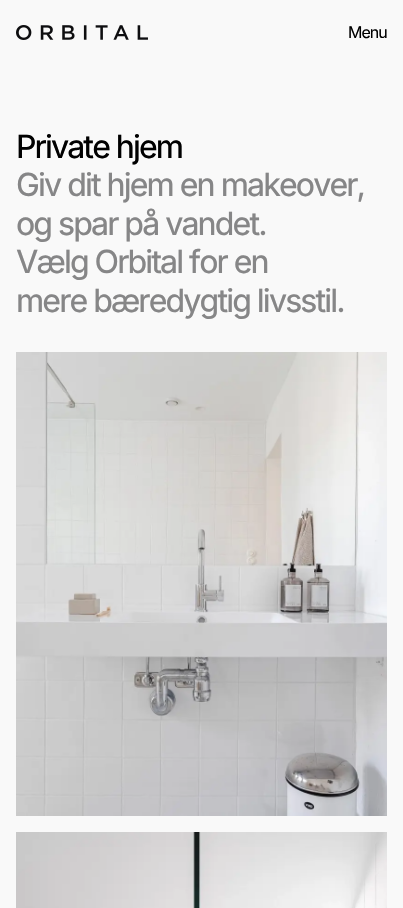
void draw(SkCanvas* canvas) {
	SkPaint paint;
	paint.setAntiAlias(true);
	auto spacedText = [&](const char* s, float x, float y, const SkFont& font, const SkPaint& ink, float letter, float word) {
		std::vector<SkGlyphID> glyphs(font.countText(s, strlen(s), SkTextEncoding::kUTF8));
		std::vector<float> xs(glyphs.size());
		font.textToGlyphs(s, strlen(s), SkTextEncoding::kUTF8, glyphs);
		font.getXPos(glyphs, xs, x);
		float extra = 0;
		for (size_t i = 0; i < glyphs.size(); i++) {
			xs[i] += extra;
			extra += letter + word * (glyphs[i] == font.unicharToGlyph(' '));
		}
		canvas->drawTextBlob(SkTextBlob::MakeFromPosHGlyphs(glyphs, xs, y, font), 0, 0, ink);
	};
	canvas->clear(0xfff9f9f9);
	canvas->drawImageRect(SkImages::DeferredFromEncodedData(SkData::MakeFromFileName("img1.png")), SkRect::MakeXYWH(16, 25, 132, 15), SkSamplingOptions());
	SkFont f1(fontMgr->matchFamilyStyle("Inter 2", SkFontStyle::Normal()), 16);
	f1.setSubpixel(true);
	paint.setColor(0xff000000);
	spacedText("Menu", 348, 38, f1, paint, -1, 0);
	SkFont f2(fontMgr->matchFamilyStyle("Inter", SkFontStyle::Normal()), 32);
	f2.setSubpixel(true);
	spacedText("Private hjem", 16, 158, f2, paint, -1.9, 0);
	paint.setColor(0xff868687);
	spacedText("Giv dit hjem en makeover,", 16, 196, f2, paint, -1.9, 0);
	spacedText("og spar på vandet.", 16, 235, f2, paint, -1.9, 0);
	spacedText("Vælg Orbital for en", 16, 273, f2, paint, -1.9, 0);
	spacedText("mere bæredygtig livsstil.", 16, 312, f2, paint, -1.9, 0);
	canvas->drawImageRect(SkImages::DeferredFromEncodedData(SkData::MakeFromFileName("img2.png")), SkRect::MakeXYWH(16, 352, 371, 464), SkSamplingOptions());
	canvas->drawImageRect(SkImages::DeferredFromEncodedData(SkData::MakeFromFileName("img3.png")), SkRect::MakeXYWH(16, 832, 371, 76), SkSamplingOptions());
}
